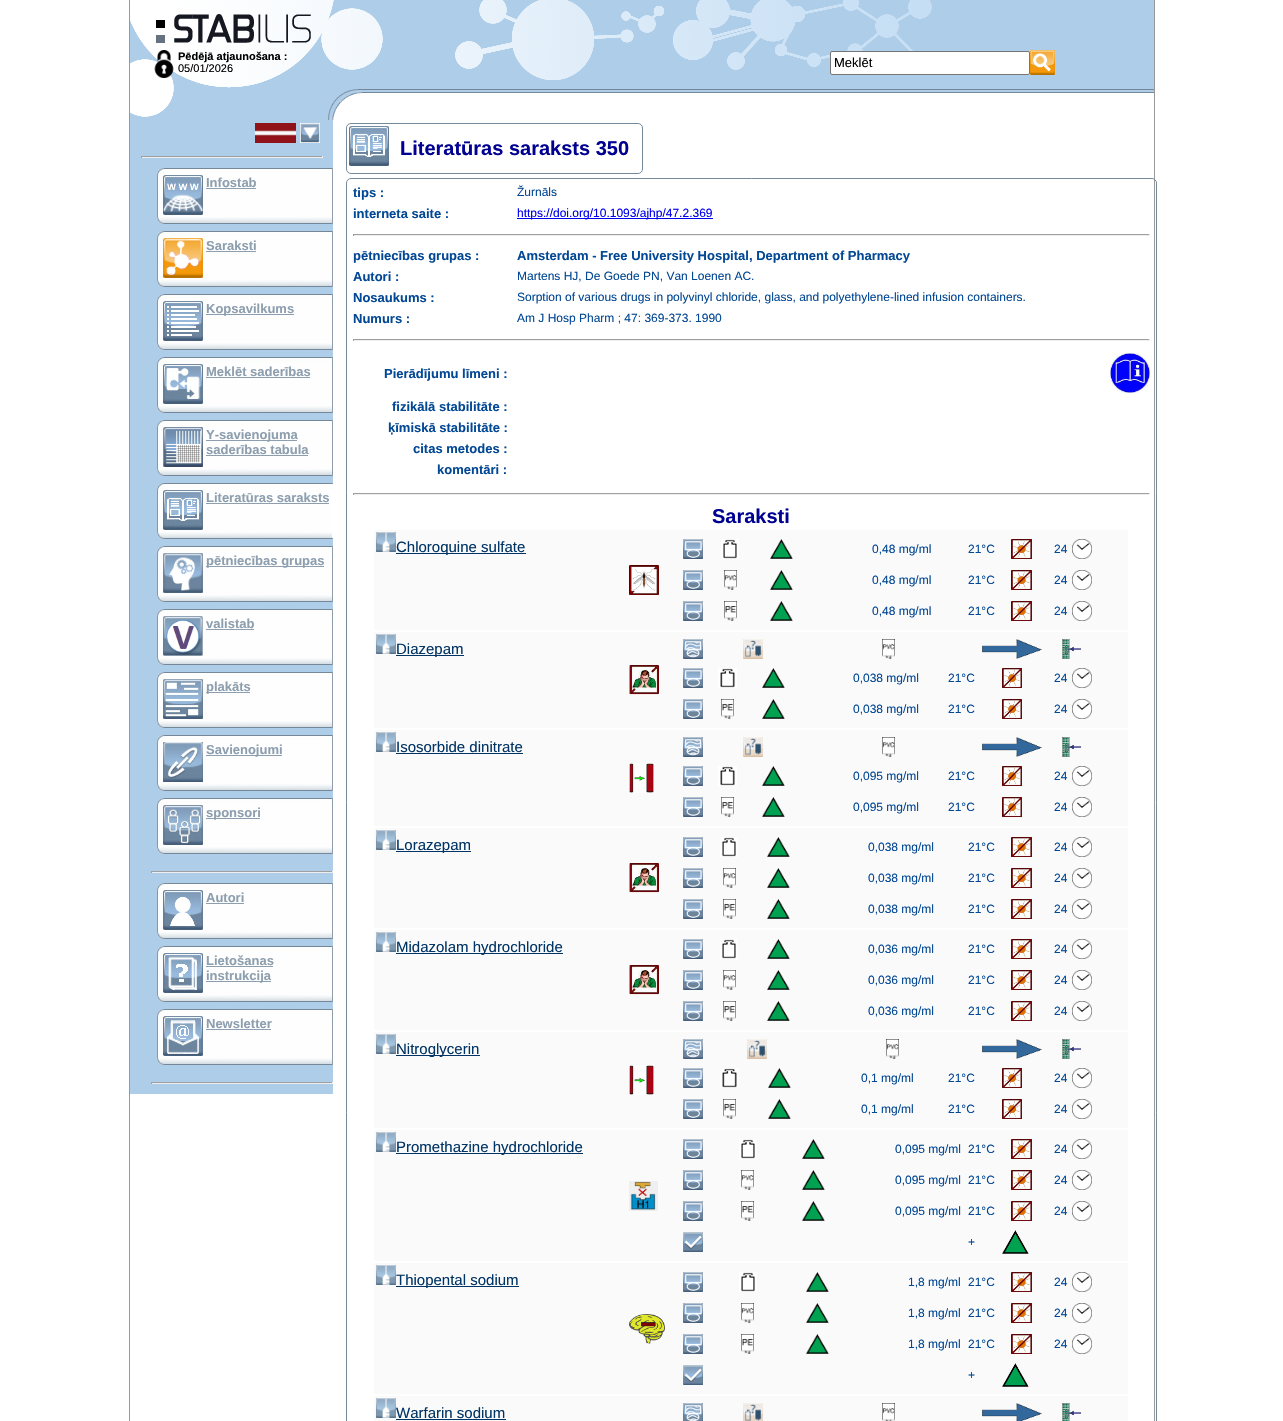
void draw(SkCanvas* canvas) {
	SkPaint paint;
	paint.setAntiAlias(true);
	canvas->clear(0xffffffff);
	paint.setColor(0xff999999);
	canvas->drawRect(SkRect::MakeXYWH(1154, 0, 1, 1421), paint);
	canvas->drawRect(SkRect::MakeXYWH(129, 0, 1, 1421), paint);
	canvas->drawImageRect(SkImages::DeferredFromEncodedData(SkData::MakeFromFileName("img1.png")), SkRect::MakeXYWH(130, 0, 1024, 120), SkSamplingOptions());
	canvas->drawImageRect(SkImages::DeferredFromEncodedData(SkData::MakeFromFileName("img2.png")), SkRect::MakeXYWH(154, 50, 20, 28), SkSamplingOptions());
	SkFont f1(fontMgr->matchFamilyStyle("Liberation Sans", SkFontStyle::Bold()), 11);
	f1.setSubpixel(true);
	paint.setColor(0xff000000);
	canvas->drawString("Pēdējā atjaunošana :", 178, 60, f1, paint);
	SkFont f2(fontMgr->matchFamilyStyle("Liberation Sans", SkFontStyle::Normal()), 11);
	f2.setSubpixel(true);
	canvas->drawString("05/01/2026", 178, 72, f2, paint);
	paint.setColor(0xffffffff);
	canvas->drawRoundRect(SkRect::MakeXYWH(830.5, 51.5, 199, 23), 1.5, 1.5, paint);
	paint.setStroke(true);
	paint.setStrokeWidth(1);
	paint.setColor(0xff767676);
	canvas->drawRoundRect(SkRect::MakeXYWH(830.5, 51.5, 199, 23), 1.5, 1.5, paint);
	SkFont f3(fontMgr->matchFamilyStyle("Liberation Sans", SkFontStyle::Normal()), 13);
	f3.setSubpixel(true);
	paint.setStroke(false);
	paint.setColor(0xff000000);
	canvas->drawString("Meklēt", 834, 67, f3, paint);
	canvas->drawImageRect(SkImages::DeferredFromEncodedData(SkData::MakeFromFileName("img3.png")), SkRect::MakeXYWH(1030, 50, 25, 25), SkSamplingOptions());
	paint.setColor(0xffaecde9);
	canvas->drawRect(SkRect::MakeXYWH(130, 120, 203, 974), paint);
	canvas->drawImageRect(SkImages::DeferredFromEncodedData(SkData::MakeFromFileName("img4.png")), SkRect::MakeXYWH(255, 123, 41, 20), SkSamplingOptions());
	canvas->drawImageRect(SkImages::DeferredFromEncodedData(SkData::MakeFromFileName("img5.png")), SkRect::MakeXYWH(300, 123, 20, 20), SkSamplingOptions());
	paint.setColor(0xff9f9f9f);
	canvas->drawRect(SkRect::MakeXYWH(141, 156, 182, 1), paint);
	paint.setColor(0xffeeeeee);
	canvas->drawRect(SkRect::MakeXYWH(322, 156, 1, 2), paint);
	canvas->drawRect(SkRect::MakeXYWH(141, 157, 182, 1), paint);
	paint.setColor(0xff9f9f9f);
	canvas->drawRect(SkRect::MakeXYWH(141, 156, 1, 2), paint);
	canvas->drawImageRect(SkImages::DeferredFromEncodedData(SkData::MakeFromFileName("img6.png")), SkRect::MakeXYWH(157, 168, 176, 56), SkSamplingOptions());
	canvas->drawImageRect(SkImages::DeferredFromEncodedData(SkData::MakeFromFileName("img7.png")), SkRect::MakeXYWH(163, 175, 40, 40), SkSamplingOptions());
	SkFont f4(fontMgr->matchFamilyStyle("Liberation Sans", SkFontStyle::Bold()), 13);
	f4.setSubpixel(true);
	paint.setColor(0xff8d9eae);
	canvas->drawString("Infostab", 206, 187, f4, paint);
	canvas->drawRect(SkRect::MakeXYWH(206, 188, 50, 1), paint);
	canvas->drawImageRect(SkImages::DeferredFromEncodedData(SkData::MakeFromFileName("img6.png")), SkRect::MakeXYWH(157, 231, 176, 56), SkSamplingOptions());
	canvas->drawImageRect(SkImages::DeferredFromEncodedData(SkData::MakeFromFileName("img8.png")), SkRect::MakeXYWH(163, 238, 40, 40), SkSamplingOptions());
	canvas->drawString("Saraksti", 206, 250, f4, paint);
	canvas->drawRect(SkRect::MakeXYWH(206, 251, 50, 1), paint);
	canvas->drawImageRect(SkImages::DeferredFromEncodedData(SkData::MakeFromFileName("img6.png")), SkRect::MakeXYWH(157, 294, 176, 56), SkSamplingOptions());
	canvas->drawImageRect(SkImages::DeferredFromEncodedData(SkData::MakeFromFileName("img9.png")), SkRect::MakeXYWH(163, 301, 40, 40), SkSamplingOptions());
	canvas->drawRect(SkRect::MakeXYWH(206, 314, 88, 1), paint);
	canvas->drawString("Kopsavilkums", 206, 313, f4, paint);
	canvas->drawImageRect(SkImages::DeferredFromEncodedData(SkData::MakeFromFileName("img6.png")), SkRect::MakeXYWH(157, 357, 176, 56), SkSamplingOptions());
	canvas->drawImageRect(SkImages::DeferredFromEncodedData(SkData::MakeFromFileName("img10.png")), SkRect::MakeXYWH(163, 364, 40, 40), SkSamplingOptions());
	canvas->drawString("Meklēt saderības", 206, 376, f4, paint);
	canvas->drawRect(SkRect::MakeXYWH(206, 377, 104, 1), paint);
	canvas->drawImageRect(SkImages::DeferredFromEncodedData(SkData::MakeFromFileName("img6.png")), SkRect::MakeXYWH(157, 420, 176, 56), SkSamplingOptions());
	canvas->drawImageRect(SkImages::DeferredFromEncodedData(SkData::MakeFromFileName("img11.png")), SkRect::MakeXYWH(163, 427, 40, 40), SkSamplingOptions());
	canvas->drawRect(SkRect::MakeXYWH(206, 440, 91, 1), paint);
	canvas->drawString("Y-savienojuma", 206, 439, f4, paint);
	canvas->drawString("saderības tabula", 206, 454, f4, paint);
	canvas->drawRect(SkRect::MakeXYWH(206, 455, 102, 1), paint);
	canvas->drawImageRect(SkImages::DeferredFromEncodedData(SkData::MakeFromFileName("img12.png")), SkRect::MakeXYWH(157, 483, 176, 56), SkSamplingOptions());
	canvas->drawImageRect(SkImages::DeferredFromEncodedData(SkData::MakeFromFileName("img13.png")), SkRect::MakeXYWH(163, 490, 40, 40), SkSamplingOptions());
	canvas->drawString("Literatūras saraksts", 206, 502, f4, paint);
	canvas->drawRect(SkRect::MakeXYWH(206, 503, 123, 1), paint);
	canvas->drawImageRect(SkImages::DeferredFromEncodedData(SkData::MakeFromFileName("img6.png")), SkRect::MakeXYWH(157, 546, 176, 56), SkSamplingOptions());
	canvas->drawImageRect(SkImages::DeferredFromEncodedData(SkData::MakeFromFileName("img14.png")), SkRect::MakeXYWH(163, 553, 40, 40), SkSamplingOptions());
	canvas->drawRect(SkRect::MakeXYWH(206, 566, 118, 1), paint);
	canvas->drawString("pētniecības grupas", 206, 565, f4, paint);
	canvas->drawImageRect(SkImages::DeferredFromEncodedData(SkData::MakeFromFileName("img6.png")), SkRect::MakeXYWH(157, 609, 176, 56), SkSamplingOptions());
	canvas->drawImageRect(SkImages::DeferredFromEncodedData(SkData::MakeFromFileName("img15.png")), SkRect::MakeXYWH(163, 616, 40, 40), SkSamplingOptions());
	canvas->drawString("valistab", 206, 628, f4, paint);
	canvas->drawRect(SkRect::MakeXYWH(206, 629, 48, 1), paint);
	canvas->drawImageRect(SkImages::DeferredFromEncodedData(SkData::MakeFromFileName("img6.png")), SkRect::MakeXYWH(157, 672, 176, 56), SkSamplingOptions());
	canvas->drawImageRect(SkImages::DeferredFromEncodedData(SkData::MakeFromFileName("img16.png")), SkRect::MakeXYWH(163, 679, 40, 40), SkSamplingOptions());
	canvas->drawRect(SkRect::MakeXYWH(206, 692, 44, 1), paint);
	canvas->drawString("plakāts", 206, 691, f4, paint);
	canvas->drawImageRect(SkImages::DeferredFromEncodedData(SkData::MakeFromFileName("img6.png")), SkRect::MakeXYWH(157, 735, 176, 56), SkSamplingOptions());
	canvas->drawImageRect(SkImages::DeferredFromEncodedData(SkData::MakeFromFileName("img17.png")), SkRect::MakeXYWH(163, 742, 40, 40), SkSamplingOptions());
	canvas->drawRect(SkRect::MakeXYWH(206, 755, 76, 1), paint);
	canvas->drawString("Savienojumi", 206, 754, f4, paint);
	canvas->drawImageRect(SkImages::DeferredFromEncodedData(SkData::MakeFromFileName("img6.png")), SkRect::MakeXYWH(157, 798, 176, 56), SkSamplingOptions());
	canvas->drawImageRect(SkImages::DeferredFromEncodedData(SkData::MakeFromFileName("img18.png")), SkRect::MakeXYWH(163, 805, 40, 40), SkSamplingOptions());
	canvas->drawRect(SkRect::MakeXYWH(206, 818, 54, 1), paint);
	canvas->drawString("sponsori", 206, 817, f4, paint);
	paint.setColor(0xff9f9f9f);
	canvas->drawRect(SkRect::MakeXYWH(151, 871, 182, 1), paint);
	paint.setColor(0xffeeeeee);
	canvas->drawRect(SkRect::MakeXYWH(332, 871, 1, 2), paint);
	canvas->drawRect(SkRect::MakeXYWH(151, 872, 182, 1), paint);
	paint.setColor(0xff9f9f9f);
	canvas->drawRect(SkRect::MakeXYWH(151, 871, 1, 2), paint);
	canvas->drawImageRect(SkImages::DeferredFromEncodedData(SkData::MakeFromFileName("img6.png")), SkRect::MakeXYWH(157, 883, 176, 56), SkSamplingOptions());
	canvas->drawImageRect(SkImages::DeferredFromEncodedData(SkData::MakeFromFileName("img19.png")), SkRect::MakeXYWH(163, 890, 40, 40), SkSamplingOptions());
	paint.setColor(0xff8d9eae);
	canvas->drawString("Autori", 206, 902, f4, paint);
	canvas->drawRect(SkRect::MakeXYWH(206, 903, 38, 1), paint);
	canvas->drawImageRect(SkImages::DeferredFromEncodedData(SkData::MakeFromFileName("img6.png")), SkRect::MakeXYWH(157, 946, 176, 56), SkSamplingOptions());
	canvas->drawImageRect(SkImages::DeferredFromEncodedData(SkData::MakeFromFileName("img20.png")), SkRect::MakeXYWH(163, 953, 40, 40), SkSamplingOptions());
	canvas->drawString("Lietošanas", 206, 965, f4, paint);
	canvas->drawRect(SkRect::MakeXYWH(206, 966, 67, 1), paint);
	canvas->drawRect(SkRect::MakeXYWH(206, 981, 65, 1), paint);
	canvas->drawString("instrukcija", 206, 980, f4, paint);
	canvas->drawImageRect(SkImages::DeferredFromEncodedData(SkData::MakeFromFileName("img6.png")), SkRect::MakeXYWH(157, 1009, 176, 56), SkSamplingOptions());
	canvas->drawImageRect(SkImages::DeferredFromEncodedData(SkData::MakeFromFileName("img21.png")), SkRect::MakeXYWH(163, 1016, 40, 40), SkSamplingOptions());
	canvas->drawString("Newsletter", 206, 1028, f4, paint);
	canvas->drawRect(SkRect::MakeXYWH(206, 1029, 65, 1), paint);
	paint.setColor(0xff9f9f9f);
	canvas->drawRect(SkRect::MakeXYWH(151, 1082, 182, 1), paint);
	paint.setColor(0xffeeeeee);
	canvas->drawRect(SkRect::MakeXYWH(332, 1082, 1, 2), paint);
	canvas->drawRect(SkRect::MakeXYWH(151, 1083, 182, 1), paint);
	paint.setColor(0xff9f9f9f);
	canvas->drawRect(SkRect::MakeXYWH(151, 1082, 1, 2), paint);
	paint.setStroke(true);
	paint.setColor(0xff74899a);
	canvas->drawRoundRect(SkRect::MakeXYWH(346.5, 123.5, 296, 50), 4.5, 4.5, paint);
	canvas->drawImageRect(SkImages::DeferredFromEncodedData(SkData::MakeFromFileName("img13.png")), SkRect::MakeXYWH(349, 126, 40, 40), SkSamplingOptions());
	SkFont f5(fontMgr->matchFamilyStyle("Liberation Sans", SkFontStyle::Bold()), 20);
	f5.setSubpixel(true);
	paint.setStroke(false);
	paint.setColor(0xff000091);
	canvas->drawString("Literatūras saraksts 350", 400, 155, f5, paint);
	paint.setStroke(true);
	paint.setColor(0xff74899a);
	canvas->drawRoundRect(SkRect::MakeXYWH(346.5, 178.5, 810, 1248), 4.5, 4.5, paint);
	paint.setStroke(false);
	paint.setColor(0xff034894);
	canvas->drawString("tips :", 353, 197, f4, paint);
	SkFont f6(fontMgr->matchFamilyStyle("Liberation Sans", SkFontStyle::Normal()), 12);
	f6.setSubpixel(true);
	canvas->drawString("Žurnāls", 517, 196, f6, paint);
	canvas->drawString("interneta saite :", 353, 218, f4, paint);
	paint.setColor(0xff0000ee);
	canvas->drawRect(SkRect::MakeXYWH(517, 218, 196, 1), paint);
	canvas->drawString("https://doi.org/10.1093/ajhp/47.2.369", 517, 217, f6, paint);
	paint.setColor(0xff9f9f9f);
	canvas->drawRect(SkRect::MakeXYWH(353, 234, 797, 1), paint);
	paint.setColor(0xffeeeeee);
	canvas->drawRect(SkRect::MakeXYWH(1149, 234, 1, 2), paint);
	canvas->drawRect(SkRect::MakeXYWH(353, 235, 797, 1), paint);
	paint.setColor(0xff9f9f9f);
	canvas->drawRect(SkRect::MakeXYWH(353, 234, 1, 2), paint);
	paint.setColor(0xff034894);
	canvas->drawString("pētniecības grupas :", 353, 260, f4, paint);
	canvas->drawString("Amsterdam - Free University Hospital, Department of Pharmacy", 517, 260, f4, paint);
	canvas->drawString("Autori :", 353, 281, f4, paint);
	canvas->drawString("Martens HJ, De Goede PN, Van Loenen AC.", 517, 280, f6, paint);
	canvas->drawString("Nosaukums :", 353, 302, f4, paint);
	canvas->drawString("Sorption of various drugs in polyvinyl chloride, glass, and polyethylene-lined infusion containers.", 517, 301, f6, paint);
	canvas->drawString("Numurs :", 353, 323, f4, paint);
	canvas->drawString("Am J Hosp Pharm ; 47: 369-373. 1990", 517, 322, f6, paint);
	paint.setColor(0xff9f9f9f);
	canvas->drawRect(SkRect::MakeXYWH(353, 339, 797, 1), paint);
	paint.setColor(0xffeeeeee);
	canvas->drawRect(SkRect::MakeXYWH(1149, 339, 1, 2), paint);
	canvas->drawRect(SkRect::MakeXYWH(353, 340, 797, 1), paint);
	paint.setColor(0xff9f9f9f);
	canvas->drawRect(SkRect::MakeXYWH(353, 339, 1, 2), paint);
	paint.setColor(0xff034894);
	canvas->drawString("Pierādījumu līmeni :", 384, 378, f4, paint);
	canvas->drawImageRect(SkImages::DeferredFromEncodedData(SkData::MakeFromFileName("img22.png")), SkRect::MakeXYWH(1110, 353, 40, 40), SkSamplingOptions());
	canvas->drawString("fizikālā stabilitāte :", 392, 411, f4, paint);
	canvas->drawString("ķīmiskā stabilitāte :", 388, 432, f4, paint);
	canvas->drawString("citas metodes :", 413, 453, f4, paint);
	canvas->drawString("komentāri :", 437, 474, f4, paint);
	paint.setColor(0xff9f9f9f);
	canvas->drawRect(SkRect::MakeXYWH(353, 493, 797, 1), paint);
	paint.setColor(0xffeeeeee);
	canvas->drawRect(SkRect::MakeXYWH(1149, 493, 1, 2), paint);
	canvas->drawRect(SkRect::MakeXYWH(353, 494, 797, 1), paint);
	paint.setColor(0xff9f9f9f);
	canvas->drawRect(SkRect::MakeXYWH(353, 493, 1, 2), paint);
	paint.setColor(0xff000091);
	canvas->drawString("Saraksti", 712, 523, f5, paint);
	paint.setColor(0xfffafafa);
	canvas->drawRect(SkRect::MakeXYWH(374, 530, 754, 100), paint);
	canvas->drawImageRect(SkImages::DeferredFromEncodedData(SkData::MakeFromFileName("img23.png")), SkRect::MakeXYWH(376, 532, 20, 20), SkSamplingOptions());
	paint.setColor(0xff003465);
	canvas->drawRect(SkRect::MakeXYWH(396, 553, 130, 1), paint);
	SkFont f7(fontMgr->matchFamilyStyle("Liberation Sans", SkFontStyle::Normal()), 15);
	f7.setSubpixel(true);
	canvas->drawString("Chloroquine sulfate", 396, 552, f7, paint);
	canvas->drawImageRect(SkImages::DeferredFromEncodedData(SkData::MakeFromFileName("img24.png")), SkRect::MakeXYWH(629, 565, 30, 30), SkSamplingOptions());
	canvas->drawImageRect(SkImages::DeferredFromEncodedData(SkData::MakeFromFileName("img25.png")), SkRect::MakeXYWH(683, 539, 20, 20), SkSamplingOptions());
	canvas->drawImageRect(SkImages::DeferredFromEncodedData(SkData::MakeFromFileName("img26.png")), SkRect::MakeXYWH(721, 539, 18, 20), SkSamplingOptions());
	canvas->drawImageRect(SkImages::DeferredFromEncodedData(SkData::MakeFromFileName("img27.png")), SkRect::MakeXYWH(770, 539, 23, 20), SkSamplingOptions());
	paint.setColor(0xff034894);
	canvas->drawString("0,48 mg/ml", 872, 553, f6, paint);
	canvas->drawString("21°C", 968, 553, f6, paint);
	canvas->drawImageRect(SkImages::DeferredFromEncodedData(SkData::MakeFromFileName("img28.png")), SkRect::MakeXYWH(1011, 539, 21, 20), SkSamplingOptions());
	canvas->drawString("24", 1054, 553, f6, paint);
	canvas->drawImageRect(SkImages::DeferredFromEncodedData(SkData::MakeFromFileName("img29.png")), SkRect::MakeXYWH(1072, 539, 20, 20), SkSamplingOptions());
	canvas->drawImageRect(SkImages::DeferredFromEncodedData(SkData::MakeFromFileName("img25.png")), SkRect::MakeXYWH(683, 570, 20, 20), SkSamplingOptions());
	canvas->drawImageRect(SkImages::DeferredFromEncodedData(SkData::MakeFromFileName("img30.png")), SkRect::MakeXYWH(724, 570, 13, 20), SkSamplingOptions());
	canvas->drawImageRect(SkImages::DeferredFromEncodedData(SkData::MakeFromFileName("img27.png")), SkRect::MakeXYWH(770, 570, 23, 20), SkSamplingOptions());
	canvas->drawString("0,48 mg/ml", 872, 584, f6, paint);
	canvas->drawString("21°C", 968, 584, f6, paint);
	canvas->drawImageRect(SkImages::DeferredFromEncodedData(SkData::MakeFromFileName("img28.png")), SkRect::MakeXYWH(1011, 570, 21, 20), SkSamplingOptions());
	canvas->drawString("24", 1054, 584, f6, paint);
	canvas->drawImageRect(SkImages::DeferredFromEncodedData(SkData::MakeFromFileName("img29.png")), SkRect::MakeXYWH(1072, 570, 20, 20), SkSamplingOptions());
	canvas->drawImageRect(SkImages::DeferredFromEncodedData(SkData::MakeFromFileName("img25.png")), SkRect::MakeXYWH(683, 601, 20, 20), SkSamplingOptions());
	canvas->drawImageRect(SkImages::DeferredFromEncodedData(SkData::MakeFromFileName("img31.png")), SkRect::MakeXYWH(724, 601, 13, 20), SkSamplingOptions());
	canvas->drawImageRect(SkImages::DeferredFromEncodedData(SkData::MakeFromFileName("img27.png")), SkRect::MakeXYWH(770, 601, 23, 20), SkSamplingOptions());
	canvas->drawString("0,48 mg/ml", 872, 615, f6, paint);
	canvas->drawString("21°C", 968, 615, f6, paint);
	canvas->drawImageRect(SkImages::DeferredFromEncodedData(SkData::MakeFromFileName("img28.png")), SkRect::MakeXYWH(1011, 601, 21, 20), SkSamplingOptions());
	canvas->drawString("24", 1054, 615, f6, paint);
	canvas->drawImageRect(SkImages::DeferredFromEncodedData(SkData::MakeFromFileName("img29.png")), SkRect::MakeXYWH(1072, 601, 20, 20), SkSamplingOptions());
	paint.setColor(0xfffafafa);
	canvas->drawRect(SkRect::MakeXYWH(374, 632, 754, 96), paint);
	canvas->drawImageRect(SkImages::DeferredFromEncodedData(SkData::MakeFromFileName("img32.png")), SkRect::MakeXYWH(376, 634, 20, 20), SkSamplingOptions());
	paint.setColor(0xff003465);
	canvas->drawRect(SkRect::MakeXYWH(396, 655, 68, 1), paint);
	canvas->drawString("Diazepam", 396, 654, f7, paint);
	canvas->drawImageRect(SkImages::DeferredFromEncodedData(SkData::MakeFromFileName("img33.png")), SkRect::MakeXYWH(629, 665, 30, 30), SkSamplingOptions());
	canvas->drawImageRect(SkImages::DeferredFromEncodedData(SkData::MakeFromFileName("img34.png")), SkRect::MakeXYWH(683, 639, 20, 20), SkSamplingOptions());
	canvas->drawImageRect(SkImages::DeferredFromEncodedData(SkData::MakeFromFileName("img35.png")), SkRect::MakeXYWH(743, 639, 20, 20), SkSamplingOptions());
	canvas->drawImageRect(SkImages::DeferredFromEncodedData(SkData::MakeFromFileName("img36.png")), SkRect::MakeXYWH(882, 639, 13, 20), SkSamplingOptions());
	canvas->drawImageRect(SkImages::DeferredFromEncodedData(SkData::MakeFromFileName("img37.png")), SkRect::MakeXYWH(982, 639, 60, 20), SkSamplingOptions());
	canvas->drawImageRect(SkImages::DeferredFromEncodedData(SkData::MakeFromFileName("img38.png")), SkRect::MakeXYWH(1062, 639, 19, 20), SkSamplingOptions());
	canvas->drawImageRect(SkImages::DeferredFromEncodedData(SkData::MakeFromFileName("img25.png")), SkRect::MakeXYWH(683, 668, 20, 20), SkSamplingOptions());
	canvas->drawImageRect(SkImages::DeferredFromEncodedData(SkData::MakeFromFileName("img39.png")), SkRect::MakeXYWH(718, 668, 19, 20), SkSamplingOptions());
	canvas->drawImageRect(SkImages::DeferredFromEncodedData(SkData::MakeFromFileName("img27.png")), SkRect::MakeXYWH(762, 668, 23, 20), SkSamplingOptions());
	paint.setColor(0xff034894);
	canvas->drawString("0,038 mg/ml", 853, 682, f6, paint);
	canvas->drawString("21°C", 948, 682, f6, paint);
	canvas->drawImageRect(SkImages::DeferredFromEncodedData(SkData::MakeFromFileName("img40.png")), SkRect::MakeXYWH(1002, 668, 20, 20), SkSamplingOptions());
	canvas->drawString("24", 1054, 682, f6, paint);
	canvas->drawImageRect(SkImages::DeferredFromEncodedData(SkData::MakeFromFileName("img29.png")), SkRect::MakeXYWH(1072, 668, 20, 20), SkSamplingOptions());
	canvas->drawImageRect(SkImages::DeferredFromEncodedData(SkData::MakeFromFileName("img25.png")), SkRect::MakeXYWH(683, 699, 20, 20), SkSamplingOptions());
	canvas->drawImageRect(SkImages::DeferredFromEncodedData(SkData::MakeFromFileName("img41.png")), SkRect::MakeXYWH(721, 699, 13, 20), SkSamplingOptions());
	canvas->drawImageRect(SkImages::DeferredFromEncodedData(SkData::MakeFromFileName("img27.png")), SkRect::MakeXYWH(762, 699, 23, 20), SkSamplingOptions());
	canvas->drawString("0,038 mg/ml", 853, 713, f6, paint);
	canvas->drawString("21°C", 948, 713, f6, paint);
	canvas->drawImageRect(SkImages::DeferredFromEncodedData(SkData::MakeFromFileName("img40.png")), SkRect::MakeXYWH(1002, 699, 20, 20), SkSamplingOptions());
	canvas->drawString("24", 1054, 713, f6, paint);
	canvas->drawImageRect(SkImages::DeferredFromEncodedData(SkData::MakeFromFileName("img29.png")), SkRect::MakeXYWH(1072, 699, 20, 20), SkSamplingOptions());
	paint.setColor(0xfffafafa);
	canvas->drawRect(SkRect::MakeXYWH(374, 730, 754, 96), paint);
	canvas->drawImageRect(SkImages::DeferredFromEncodedData(SkData::MakeFromFileName("img32.png")), SkRect::MakeXYWH(376, 732, 20, 20), SkSamplingOptions());
	paint.setColor(0xff003465);
	canvas->drawString("Isosorbide dinitrate", 396, 752, f7, paint);
	canvas->drawRect(SkRect::MakeXYWH(396, 753, 127, 1), paint);
	canvas->drawImageRect(SkImages::DeferredFromEncodedData(SkData::MakeFromFileName("img42.png")), SkRect::MakeXYWH(629, 763, 25, 30), SkSamplingOptions());
	canvas->drawImageRect(SkImages::DeferredFromEncodedData(SkData::MakeFromFileName("img34.png")), SkRect::MakeXYWH(683, 737, 20, 20), SkSamplingOptions());
	canvas->drawImageRect(SkImages::DeferredFromEncodedData(SkData::MakeFromFileName("img35.png")), SkRect::MakeXYWH(743, 737, 20, 20), SkSamplingOptions());
	canvas->drawImageRect(SkImages::DeferredFromEncodedData(SkData::MakeFromFileName("img36.png")), SkRect::MakeXYWH(882, 737, 13, 20), SkSamplingOptions());
	canvas->drawImageRect(SkImages::DeferredFromEncodedData(SkData::MakeFromFileName("img37.png")), SkRect::MakeXYWH(982, 737, 60, 20), SkSamplingOptions());
	canvas->drawImageRect(SkImages::DeferredFromEncodedData(SkData::MakeFromFileName("img38.png")), SkRect::MakeXYWH(1062, 737, 19, 20), SkSamplingOptions());
	canvas->drawImageRect(SkImages::DeferredFromEncodedData(SkData::MakeFromFileName("img25.png")), SkRect::MakeXYWH(683, 766, 20, 20), SkSamplingOptions());
	canvas->drawImageRect(SkImages::DeferredFromEncodedData(SkData::MakeFromFileName("img43.png")), SkRect::MakeXYWH(718, 766, 19, 20), SkSamplingOptions());
	canvas->drawImageRect(SkImages::DeferredFromEncodedData(SkData::MakeFromFileName("img27.png")), SkRect::MakeXYWH(762, 766, 23, 20), SkSamplingOptions());
	paint.setColor(0xff034894);
	canvas->drawString("0,095 mg/ml", 853, 780, f6, paint);
	canvas->drawString("21°C", 948, 780, f6, paint);
	canvas->drawImageRect(SkImages::DeferredFromEncodedData(SkData::MakeFromFileName("img44.png")), SkRect::MakeXYWH(1002, 766, 20, 20), SkSamplingOptions());
	canvas->drawString("24", 1054, 780, f6, paint);
	canvas->drawImageRect(SkImages::DeferredFromEncodedData(SkData::MakeFromFileName("img29.png")), SkRect::MakeXYWH(1072, 766, 20, 20), SkSamplingOptions());
	canvas->drawImageRect(SkImages::DeferredFromEncodedData(SkData::MakeFromFileName("img25.png")), SkRect::MakeXYWH(683, 797, 20, 20), SkSamplingOptions());
	canvas->drawImageRect(SkImages::DeferredFromEncodedData(SkData::MakeFromFileName("img45.png")), SkRect::MakeXYWH(721, 797, 13, 20), SkSamplingOptions());
	canvas->drawImageRect(SkImages::DeferredFromEncodedData(SkData::MakeFromFileName("img27.png")), SkRect::MakeXYWH(762, 797, 23, 20), SkSamplingOptions());
	canvas->drawString("0,095 mg/ml", 853, 811, f6, paint);
	canvas->drawString("21°C", 948, 811, f6, paint);
	canvas->drawImageRect(SkImages::DeferredFromEncodedData(SkData::MakeFromFileName("img40.png")), SkRect::MakeXYWH(1002, 797, 20, 20), SkSamplingOptions());
	canvas->drawString("24", 1054, 811, f6, paint);
	canvas->drawImageRect(SkImages::DeferredFromEncodedData(SkData::MakeFromFileName("img29.png")), SkRect::MakeXYWH(1072, 797, 20, 20), SkSamplingOptions());
	paint.setColor(0xfffafafa);
	canvas->drawRect(SkRect::MakeXYWH(374, 828, 754, 100), paint);
	canvas->drawImageRect(SkImages::DeferredFromEncodedData(SkData::MakeFromFileName("img32.png")), SkRect::MakeXYWH(376, 830, 20, 20), SkSamplingOptions());
	paint.setColor(0xff003465);
	canvas->drawRect(SkRect::MakeXYWH(396, 851, 75, 1), paint);
	canvas->drawString("Lorazepam", 396, 850, f7, paint);
	canvas->drawImageRect(SkImages::DeferredFromEncodedData(SkData::MakeFromFileName("img33.png")), SkRect::MakeXYWH(629, 863, 30, 30), SkSamplingOptions());
	canvas->drawImageRect(SkImages::DeferredFromEncodedData(SkData::MakeFromFileName("img25.png")), SkRect::MakeXYWH(683, 837, 20, 20), SkSamplingOptions());
	canvas->drawImageRect(SkImages::DeferredFromEncodedData(SkData::MakeFromFileName("img26.png")), SkRect::MakeXYWH(720, 837, 18, 20), SkSamplingOptions());
	canvas->drawImageRect(SkImages::DeferredFromEncodedData(SkData::MakeFromFileName("img27.png")), SkRect::MakeXYWH(767, 837, 23, 20), SkSamplingOptions());
	paint.setColor(0xff034894);
	canvas->drawString("0,038 mg/ml", 868, 851, f6, paint);
	canvas->drawString("21°C", 968, 851, f6, paint);
	canvas->drawImageRect(SkImages::DeferredFromEncodedData(SkData::MakeFromFileName("img28.png")), SkRect::MakeXYWH(1011, 837, 21, 20), SkSamplingOptions());
	canvas->drawString("24", 1054, 851, f6, paint);
	canvas->drawImageRect(SkImages::DeferredFromEncodedData(SkData::MakeFromFileName("img29.png")), SkRect::MakeXYWH(1072, 837, 20, 20), SkSamplingOptions());
	canvas->drawImageRect(SkImages::DeferredFromEncodedData(SkData::MakeFromFileName("img25.png")), SkRect::MakeXYWH(683, 868, 20, 20), SkSamplingOptions());
	canvas->drawImageRect(SkImages::DeferredFromEncodedData(SkData::MakeFromFileName("img46.png")), SkRect::MakeXYWH(723, 868, 13, 20), SkSamplingOptions());
	canvas->drawImageRect(SkImages::DeferredFromEncodedData(SkData::MakeFromFileName("img27.png")), SkRect::MakeXYWH(767, 868, 23, 20), SkSamplingOptions());
	canvas->drawString("0,038 mg/ml", 868, 882, f6, paint);
	canvas->drawString("21°C", 968, 882, f6, paint);
	canvas->drawImageRect(SkImages::DeferredFromEncodedData(SkData::MakeFromFileName("img28.png")), SkRect::MakeXYWH(1011, 868, 21, 20), SkSamplingOptions());
	canvas->drawString("24", 1054, 882, f6, paint);
	canvas->drawImageRect(SkImages::DeferredFromEncodedData(SkData::MakeFromFileName("img29.png")), SkRect::MakeXYWH(1072, 868, 20, 20), SkSamplingOptions());
	canvas->drawImageRect(SkImages::DeferredFromEncodedData(SkData::MakeFromFileName("img25.png")), SkRect::MakeXYWH(683, 899, 20, 20), SkSamplingOptions());
	canvas->drawImageRect(SkImages::DeferredFromEncodedData(SkData::MakeFromFileName("img45.png")), SkRect::MakeXYWH(723, 899, 13, 20), SkSamplingOptions());
	canvas->drawImageRect(SkImages::DeferredFromEncodedData(SkData::MakeFromFileName("img27.png")), SkRect::MakeXYWH(767, 899, 23, 20), SkSamplingOptions());
	canvas->drawString("0,038 mg/ml", 868, 913, f6, paint);
	canvas->drawString("21°C", 968, 913, f6, paint);
	canvas->drawImageRect(SkImages::DeferredFromEncodedData(SkData::MakeFromFileName("img28.png")), SkRect::MakeXYWH(1011, 899, 21, 20), SkSamplingOptions());
	canvas->drawString("24", 1054, 913, f6, paint);
	canvas->drawImageRect(SkImages::DeferredFromEncodedData(SkData::MakeFromFileName("img29.png")), SkRect::MakeXYWH(1072, 899, 20, 20), SkSamplingOptions());
	paint.setColor(0xfffafafa);
	canvas->drawRect(SkRect::MakeXYWH(374, 930, 754, 100), paint);
	canvas->drawImageRect(SkImages::DeferredFromEncodedData(SkData::MakeFromFileName("img32.png")), SkRect::MakeXYWH(376, 932, 20, 20), SkSamplingOptions());
	paint.setColor(0xff003465);
	canvas->drawRect(SkRect::MakeXYWH(396, 953, 167, 1), paint);
	canvas->drawString("Midazolam hydrochloride", 396, 952, f7, paint);
	canvas->drawImageRect(SkImages::DeferredFromEncodedData(SkData::MakeFromFileName("img33.png")), SkRect::MakeXYWH(629, 965, 30, 30), SkSamplingOptions());
	canvas->drawImageRect(SkImages::DeferredFromEncodedData(SkData::MakeFromFileName("img25.png")), SkRect::MakeXYWH(683, 939, 20, 20), SkSamplingOptions());
	canvas->drawImageRect(SkImages::DeferredFromEncodedData(SkData::MakeFromFileName("img47.png")), SkRect::MakeXYWH(720, 939, 18, 20), SkSamplingOptions());
	canvas->drawImageRect(SkImages::DeferredFromEncodedData(SkData::MakeFromFileName("img27.png")), SkRect::MakeXYWH(767, 939, 23, 20), SkSamplingOptions());
	paint.setColor(0xff034894);
	canvas->drawString("0,036 mg/ml", 868, 953, f6, paint);
	canvas->drawString("21°C", 968, 953, f6, paint);
	canvas->drawImageRect(SkImages::DeferredFromEncodedData(SkData::MakeFromFileName("img28.png")), SkRect::MakeXYWH(1011, 939, 21, 20), SkSamplingOptions());
	canvas->drawString("24", 1054, 953, f6, paint);
	canvas->drawImageRect(SkImages::DeferredFromEncodedData(SkData::MakeFromFileName("img48.png")), SkRect::MakeXYWH(1072, 939, 20, 20), SkSamplingOptions());
	canvas->drawImageRect(SkImages::DeferredFromEncodedData(SkData::MakeFromFileName("img25.png")), SkRect::MakeXYWH(683, 970, 20, 20), SkSamplingOptions());
	canvas->drawImageRect(SkImages::DeferredFromEncodedData(SkData::MakeFromFileName("img36.png")), SkRect::MakeXYWH(723, 970, 13, 20), SkSamplingOptions());
	canvas->drawImageRect(SkImages::DeferredFromEncodedData(SkData::MakeFromFileName("img27.png")), SkRect::MakeXYWH(767, 970, 23, 20), SkSamplingOptions());
	canvas->drawString("0,036 mg/ml", 868, 984, f6, paint);
	canvas->drawString("21°C", 968, 984, f6, paint);
	canvas->drawImageRect(SkImages::DeferredFromEncodedData(SkData::MakeFromFileName("img28.png")), SkRect::MakeXYWH(1011, 970, 21, 20), SkSamplingOptions());
	canvas->drawString("24", 1054, 984, f6, paint);
	canvas->drawImageRect(SkImages::DeferredFromEncodedData(SkData::MakeFromFileName("img49.png")), SkRect::MakeXYWH(1072, 970, 20, 20), SkSamplingOptions());
	canvas->drawImageRect(SkImages::DeferredFromEncodedData(SkData::MakeFromFileName("img25.png")), SkRect::MakeXYWH(683, 1001, 20, 20), SkSamplingOptions());
	canvas->drawImageRect(SkImages::DeferredFromEncodedData(SkData::MakeFromFileName("img41.png")), SkRect::MakeXYWH(723, 1001, 13, 20), SkSamplingOptions());
	canvas->drawImageRect(SkImages::DeferredFromEncodedData(SkData::MakeFromFileName("img27.png")), SkRect::MakeXYWH(767, 1001, 23, 20), SkSamplingOptions());
	canvas->drawString("0,036 mg/ml", 868, 1015, f6, paint);
	canvas->drawString("21°C", 968, 1015, f6, paint);
	canvas->drawImageRect(SkImages::DeferredFromEncodedData(SkData::MakeFromFileName("img28.png")), SkRect::MakeXYWH(1011, 1001, 21, 20), SkSamplingOptions());
	canvas->drawString("24", 1054, 1015, f6, paint);
	canvas->drawImageRect(SkImages::DeferredFromEncodedData(SkData::MakeFromFileName("img48.png")), SkRect::MakeXYWH(1072, 1001, 20, 20), SkSamplingOptions());
	paint.setColor(0xfffafafa);
	canvas->drawRect(SkRect::MakeXYWH(374, 1032, 754, 96), paint);
	canvas->drawImageRect(SkImages::DeferredFromEncodedData(SkData::MakeFromFileName("img50.png")), SkRect::MakeXYWH(376, 1034, 20, 20), SkSamplingOptions());
	paint.setColor(0xff003465);
	canvas->drawRect(SkRect::MakeXYWH(396, 1055, 84, 1), paint);
	canvas->drawString("Nitroglycerin", 396, 1054, f7, paint);
	canvas->drawImageRect(SkImages::DeferredFromEncodedData(SkData::MakeFromFileName("img42.png")), SkRect::MakeXYWH(629, 1065, 25, 30), SkSamplingOptions());
	canvas->drawImageRect(SkImages::DeferredFromEncodedData(SkData::MakeFromFileName("img34.png")), SkRect::MakeXYWH(683, 1039, 20, 20), SkSamplingOptions());
	canvas->drawImageRect(SkImages::DeferredFromEncodedData(SkData::MakeFromFileName("img51.png")), SkRect::MakeXYWH(747, 1039, 20, 20), SkSamplingOptions());
	canvas->drawImageRect(SkImages::DeferredFromEncodedData(SkData::MakeFromFileName("img52.png")), SkRect::MakeXYWH(886, 1039, 13, 20), SkSamplingOptions());
	canvas->drawImageRect(SkImages::DeferredFromEncodedData(SkData::MakeFromFileName("img37.png")), SkRect::MakeXYWH(982, 1039, 60, 20), SkSamplingOptions());
	canvas->drawImageRect(SkImages::DeferredFromEncodedData(SkData::MakeFromFileName("img38.png")), SkRect::MakeXYWH(1062, 1039, 19, 20), SkSamplingOptions());
	canvas->drawImageRect(SkImages::DeferredFromEncodedData(SkData::MakeFromFileName("img25.png")), SkRect::MakeXYWH(683, 1068, 20, 20), SkSamplingOptions());
	canvas->drawImageRect(SkImages::DeferredFromEncodedData(SkData::MakeFromFileName("img39.png")), SkRect::MakeXYWH(720, 1068, 19, 20), SkSamplingOptions());
	canvas->drawImageRect(SkImages::DeferredFromEncodedData(SkData::MakeFromFileName("img27.png")), SkRect::MakeXYWH(768, 1068, 23, 20), SkSamplingOptions());
	paint.setColor(0xff034894);
	canvas->drawString("0,1 mg/ml", 861, 1082, f6, paint);
	canvas->drawString("21°C", 948, 1082, f6, paint);
	canvas->drawImageRect(SkImages::DeferredFromEncodedData(SkData::MakeFromFileName("img40.png")), SkRect::MakeXYWH(1002, 1068, 20, 20), SkSamplingOptions());
	canvas->drawString("24", 1054, 1082, f6, paint);
	canvas->drawImageRect(SkImages::DeferredFromEncodedData(SkData::MakeFromFileName("img53.png")), SkRect::MakeXYWH(1072, 1068, 20, 20), SkSamplingOptions());
	canvas->drawImageRect(SkImages::DeferredFromEncodedData(SkData::MakeFromFileName("img25.png")), SkRect::MakeXYWH(683, 1099, 20, 20), SkSamplingOptions());
	canvas->drawImageRect(SkImages::DeferredFromEncodedData(SkData::MakeFromFileName("img54.png")), SkRect::MakeXYWH(723, 1099, 13, 20), SkSamplingOptions());
	canvas->drawImageRect(SkImages::DeferredFromEncodedData(SkData::MakeFromFileName("img27.png")), SkRect::MakeXYWH(768, 1099, 23, 20), SkSamplingOptions());
	canvas->drawString("0,1 mg/ml", 861, 1113, f6, paint);
	canvas->drawString("21°C", 948, 1113, f6, paint);
	canvas->drawImageRect(SkImages::DeferredFromEncodedData(SkData::MakeFromFileName("img40.png")), SkRect::MakeXYWH(1002, 1099, 20, 20), SkSamplingOptions());
	canvas->drawString("24", 1054, 1113, f6, paint);
	canvas->drawImageRect(SkImages::DeferredFromEncodedData(SkData::MakeFromFileName("img29.png")), SkRect::MakeXYWH(1072, 1099, 20, 20), SkSamplingOptions());
	paint.setColor(0xfffafafa);
	canvas->drawRect(SkRect::MakeXYWH(374, 1130, 754, 131), paint);
	canvas->drawImageRect(SkImages::DeferredFromEncodedData(SkData::MakeFromFileName("img23.png")), SkRect::MakeXYWH(376, 1132, 20, 20), SkSamplingOptions());
	paint.setColor(0xff003465);
	canvas->drawRect(SkRect::MakeXYWH(396, 1153, 187, 1), paint);
	canvas->drawString("Promethazine hydrochloride", 396, 1152, f7, paint);
	canvas->drawImageRect(SkImages::DeferredFromEncodedData(SkData::MakeFromFileName("img55.png")), SkRect::MakeXYWH(629, 1181, 29, 30), SkSamplingOptions());
	canvas->drawImageRect(SkImages::DeferredFromEncodedData(SkData::MakeFromFileName("img25.png")), SkRect::MakeXYWH(683, 1139, 20, 20), SkSamplingOptions());
	canvas->drawImageRect(SkImages::DeferredFromEncodedData(SkData::MakeFromFileName("img26.png")), SkRect::MakeXYWH(739, 1139, 18, 20), SkSamplingOptions());
	canvas->drawImageRect(SkImages::DeferredFromEncodedData(SkData::MakeFromFileName("img27.png")), SkRect::MakeXYWH(802, 1139, 23, 20), SkSamplingOptions());
	paint.setColor(0xff034894);
	canvas->drawString("0,095 mg/ml", 895, 1153, f6, paint);
	canvas->drawString("21°C", 968, 1153, f6, paint);
	canvas->drawImageRect(SkImages::DeferredFromEncodedData(SkData::MakeFromFileName("img56.png")), SkRect::MakeXYWH(1011, 1139, 21, 20), SkSamplingOptions());
	canvas->drawString("24", 1054, 1153, f6, paint);
	canvas->drawImageRect(SkImages::DeferredFromEncodedData(SkData::MakeFromFileName("img29.png")), SkRect::MakeXYWH(1072, 1139, 20, 20), SkSamplingOptions());
	canvas->drawImageRect(SkImages::DeferredFromEncodedData(SkData::MakeFromFileName("img25.png")), SkRect::MakeXYWH(683, 1170, 20, 20), SkSamplingOptions());
	canvas->drawImageRect(SkImages::DeferredFromEncodedData(SkData::MakeFromFileName("img30.png")), SkRect::MakeXYWH(741, 1170, 13, 20), SkSamplingOptions());
	canvas->drawImageRect(SkImages::DeferredFromEncodedData(SkData::MakeFromFileName("img27.png")), SkRect::MakeXYWH(802, 1170, 23, 20), SkSamplingOptions());
	canvas->drawString("0,095 mg/ml", 895, 1184, f6, paint);
	canvas->drawString("21°C", 968, 1184, f6, paint);
	canvas->drawImageRect(SkImages::DeferredFromEncodedData(SkData::MakeFromFileName("img28.png")), SkRect::MakeXYWH(1011, 1170, 21, 20), SkSamplingOptions());
	canvas->drawString("24", 1054, 1184, f6, paint);
	canvas->drawImageRect(SkImages::DeferredFromEncodedData(SkData::MakeFromFileName("img29.png")), SkRect::MakeXYWH(1072, 1170, 20, 20), SkSamplingOptions());
	canvas->drawImageRect(SkImages::DeferredFromEncodedData(SkData::MakeFromFileName("img25.png")), SkRect::MakeXYWH(683, 1201, 20, 20), SkSamplingOptions());
	canvas->drawImageRect(SkImages::DeferredFromEncodedData(SkData::MakeFromFileName("img57.png")), SkRect::MakeXYWH(741, 1201, 13, 20), SkSamplingOptions());
	canvas->drawImageRect(SkImages::DeferredFromEncodedData(SkData::MakeFromFileName("img27.png")), SkRect::MakeXYWH(802, 1201, 23, 20), SkSamplingOptions());
	canvas->drawString("0,095 mg/ml", 895, 1215, f6, paint);
	canvas->drawString("21°C", 968, 1215, f6, paint);
	canvas->drawImageRect(SkImages::DeferredFromEncodedData(SkData::MakeFromFileName("img28.png")), SkRect::MakeXYWH(1011, 1201, 21, 20), SkSamplingOptions());
	canvas->drawString("24", 1054, 1215, f6, paint);
	canvas->drawImageRect(SkImages::DeferredFromEncodedData(SkData::MakeFromFileName("img29.png")), SkRect::MakeXYWH(1072, 1201, 20, 20), SkSamplingOptions());
	canvas->drawImageRect(SkImages::DeferredFromEncodedData(SkData::MakeFromFileName("img58.png")), SkRect::MakeXYWH(683, 1232, 20, 20), SkSamplingOptions());
	canvas->drawString("+", 968, 1246, f6, paint);
	canvas->drawImageRect(SkImages::DeferredFromEncodedData(SkData::MakeFromFileName("img59.png")), SkRect::MakeXYWH(1002, 1230, 27, 24), SkSamplingOptions());
	paint.setColor(0xfffafafa);
	canvas->drawRect(SkRect::MakeXYWH(374, 1263, 754, 131), paint);
	canvas->drawImageRect(SkImages::DeferredFromEncodedData(SkData::MakeFromFileName("img32.png")), SkRect::MakeXYWH(376, 1265, 20, 20), SkSamplingOptions());
	paint.setColor(0xff003465);
	canvas->drawRect(SkRect::MakeXYWH(396, 1286, 123, 1), paint);
	canvas->drawString("Thiopental sodium", 396, 1285, f7, paint);
	canvas->drawImageRect(SkImages::DeferredFromEncodedData(SkData::MakeFromFileName("img60.png")), SkRect::MakeXYWH(629, 1314, 36, 30), SkSamplingOptions());
	canvas->drawImageRect(SkImages::DeferredFromEncodedData(SkData::MakeFromFileName("img25.png")), SkRect::MakeXYWH(683, 1272, 20, 20), SkSamplingOptions());
	canvas->drawImageRect(SkImages::DeferredFromEncodedData(SkData::MakeFromFileName("img61.png")), SkRect::MakeXYWH(739, 1272, 18, 20), SkSamplingOptions());
	canvas->drawImageRect(SkImages::DeferredFromEncodedData(SkData::MakeFromFileName("img27.png")), SkRect::MakeXYWH(806, 1272, 23, 20), SkSamplingOptions());
	paint.setColor(0xff034894);
	canvas->drawString("1,8 mg/ml", 908, 1286, f6, paint);
	canvas->drawString("21°C", 968, 1286, f6, paint);
	canvas->drawImageRect(SkImages::DeferredFromEncodedData(SkData::MakeFromFileName("img62.png")), SkRect::MakeXYWH(1011, 1272, 21, 20), SkSamplingOptions());
	canvas->drawString("24", 1054, 1286, f6, paint);
	canvas->drawImageRect(SkImages::DeferredFromEncodedData(SkData::MakeFromFileName("img63.png")), SkRect::MakeXYWH(1072, 1272, 20, 20), SkSamplingOptions());
	canvas->drawImageRect(SkImages::DeferredFromEncodedData(SkData::MakeFromFileName("img25.png")), SkRect::MakeXYWH(683, 1303, 20, 20), SkSamplingOptions());
	canvas->drawImageRect(SkImages::DeferredFromEncodedData(SkData::MakeFromFileName("img64.png")), SkRect::MakeXYWH(741, 1303, 13, 20), SkSamplingOptions());
	canvas->drawImageRect(SkImages::DeferredFromEncodedData(SkData::MakeFromFileName("img27.png")), SkRect::MakeXYWH(806, 1303, 23, 20), SkSamplingOptions());
	canvas->drawString("1,8 mg/ml", 908, 1317, f6, paint);
	canvas->drawString("21°C", 968, 1317, f6, paint);
	canvas->drawImageRect(SkImages::DeferredFromEncodedData(SkData::MakeFromFileName("img65.png")), SkRect::MakeXYWH(1011, 1303, 21, 20), SkSamplingOptions());
	canvas->drawString("24", 1054, 1317, f6, paint);
	canvas->drawImageRect(SkImages::DeferredFromEncodedData(SkData::MakeFromFileName("img48.png")), SkRect::MakeXYWH(1072, 1303, 20, 20), SkSamplingOptions());
	canvas->drawImageRect(SkImages::DeferredFromEncodedData(SkData::MakeFromFileName("img25.png")), SkRect::MakeXYWH(683, 1334, 20, 20), SkSamplingOptions());
	canvas->drawImageRect(SkImages::DeferredFromEncodedData(SkData::MakeFromFileName("img57.png")), SkRect::MakeXYWH(741, 1334, 13, 20), SkSamplingOptions());
	canvas->drawImageRect(SkImages::DeferredFromEncodedData(SkData::MakeFromFileName("img27.png")), SkRect::MakeXYWH(806, 1334, 23, 20), SkSamplingOptions());
	canvas->drawString("1,8 mg/ml", 908, 1348, f6, paint);
	canvas->drawString("21°C", 968, 1348, f6, paint);
	canvas->drawImageRect(SkImages::DeferredFromEncodedData(SkData::MakeFromFileName("img66.png")), SkRect::MakeXYWH(1011, 1334, 21, 20), SkSamplingOptions());
	canvas->drawString("24", 1054, 1348, f6, paint);
	canvas->drawImageRect(SkImages::DeferredFromEncodedData(SkData::MakeFromFileName("img29.png")), SkRect::MakeXYWH(1072, 1334, 20, 20), SkSamplingOptions());
	canvas->drawImageRect(SkImages::DeferredFromEncodedData(SkData::MakeFromFileName("img58.png")), SkRect::MakeXYWH(683, 1365, 20, 20), SkSamplingOptions());
	canvas->drawString("+", 968, 1379, f6, paint);
	canvas->drawImageRect(SkImages::DeferredFromEncodedData(SkData::MakeFromFileName("img59.png")), SkRect::MakeXYWH(1002, 1363, 27, 24), SkSamplingOptions());
	paint.setColor(0xfffafafa);
	canvas->drawRect(SkRect::MakeXYWH(374, 1396, 754, 25), paint);
	canvas->drawImageRect(SkImages::DeferredFromEncodedData(SkData::MakeFromFileName("img32.png")), SkRect::MakeXYWH(376, 1398, 20, 20), SkSamplingOptions());
	paint.setColor(0xff003465);
	canvas->drawString("Warfarin sodium", 396, 1418, f7, paint);
	canvas->drawRect(SkRect::MakeXYWH(396, 1419, 110, 1), paint);
	canvas->drawImageRect(SkImages::DeferredFromEncodedData(SkData::MakeFromFileName("img67.png")), SkRect::MakeXYWH(683, 1403, 20, 18), SkSamplingOptions());
	canvas->drawImageRect(SkImages::DeferredFromEncodedData(SkData::MakeFromFileName("img68.png")), SkRect::MakeXYWH(743, 1403, 20, 18), SkSamplingOptions());
	canvas->drawImageRect(SkImages::DeferredFromEncodedData(SkData::MakeFromFileName("img69.png")), SkRect::MakeXYWH(882, 1403, 13, 18), SkSamplingOptions());
	canvas->drawImageRect(SkImages::DeferredFromEncodedData(SkData::MakeFromFileName("img70.png")), SkRect::MakeXYWH(982, 1403, 60, 18), SkSamplingOptions());
	canvas->drawImageRect(SkImages::DeferredFromEncodedData(SkData::MakeFromFileName("img71.png")), SkRect::MakeXYWH(1062, 1403, 19, 18), SkSamplingOptions());
}
